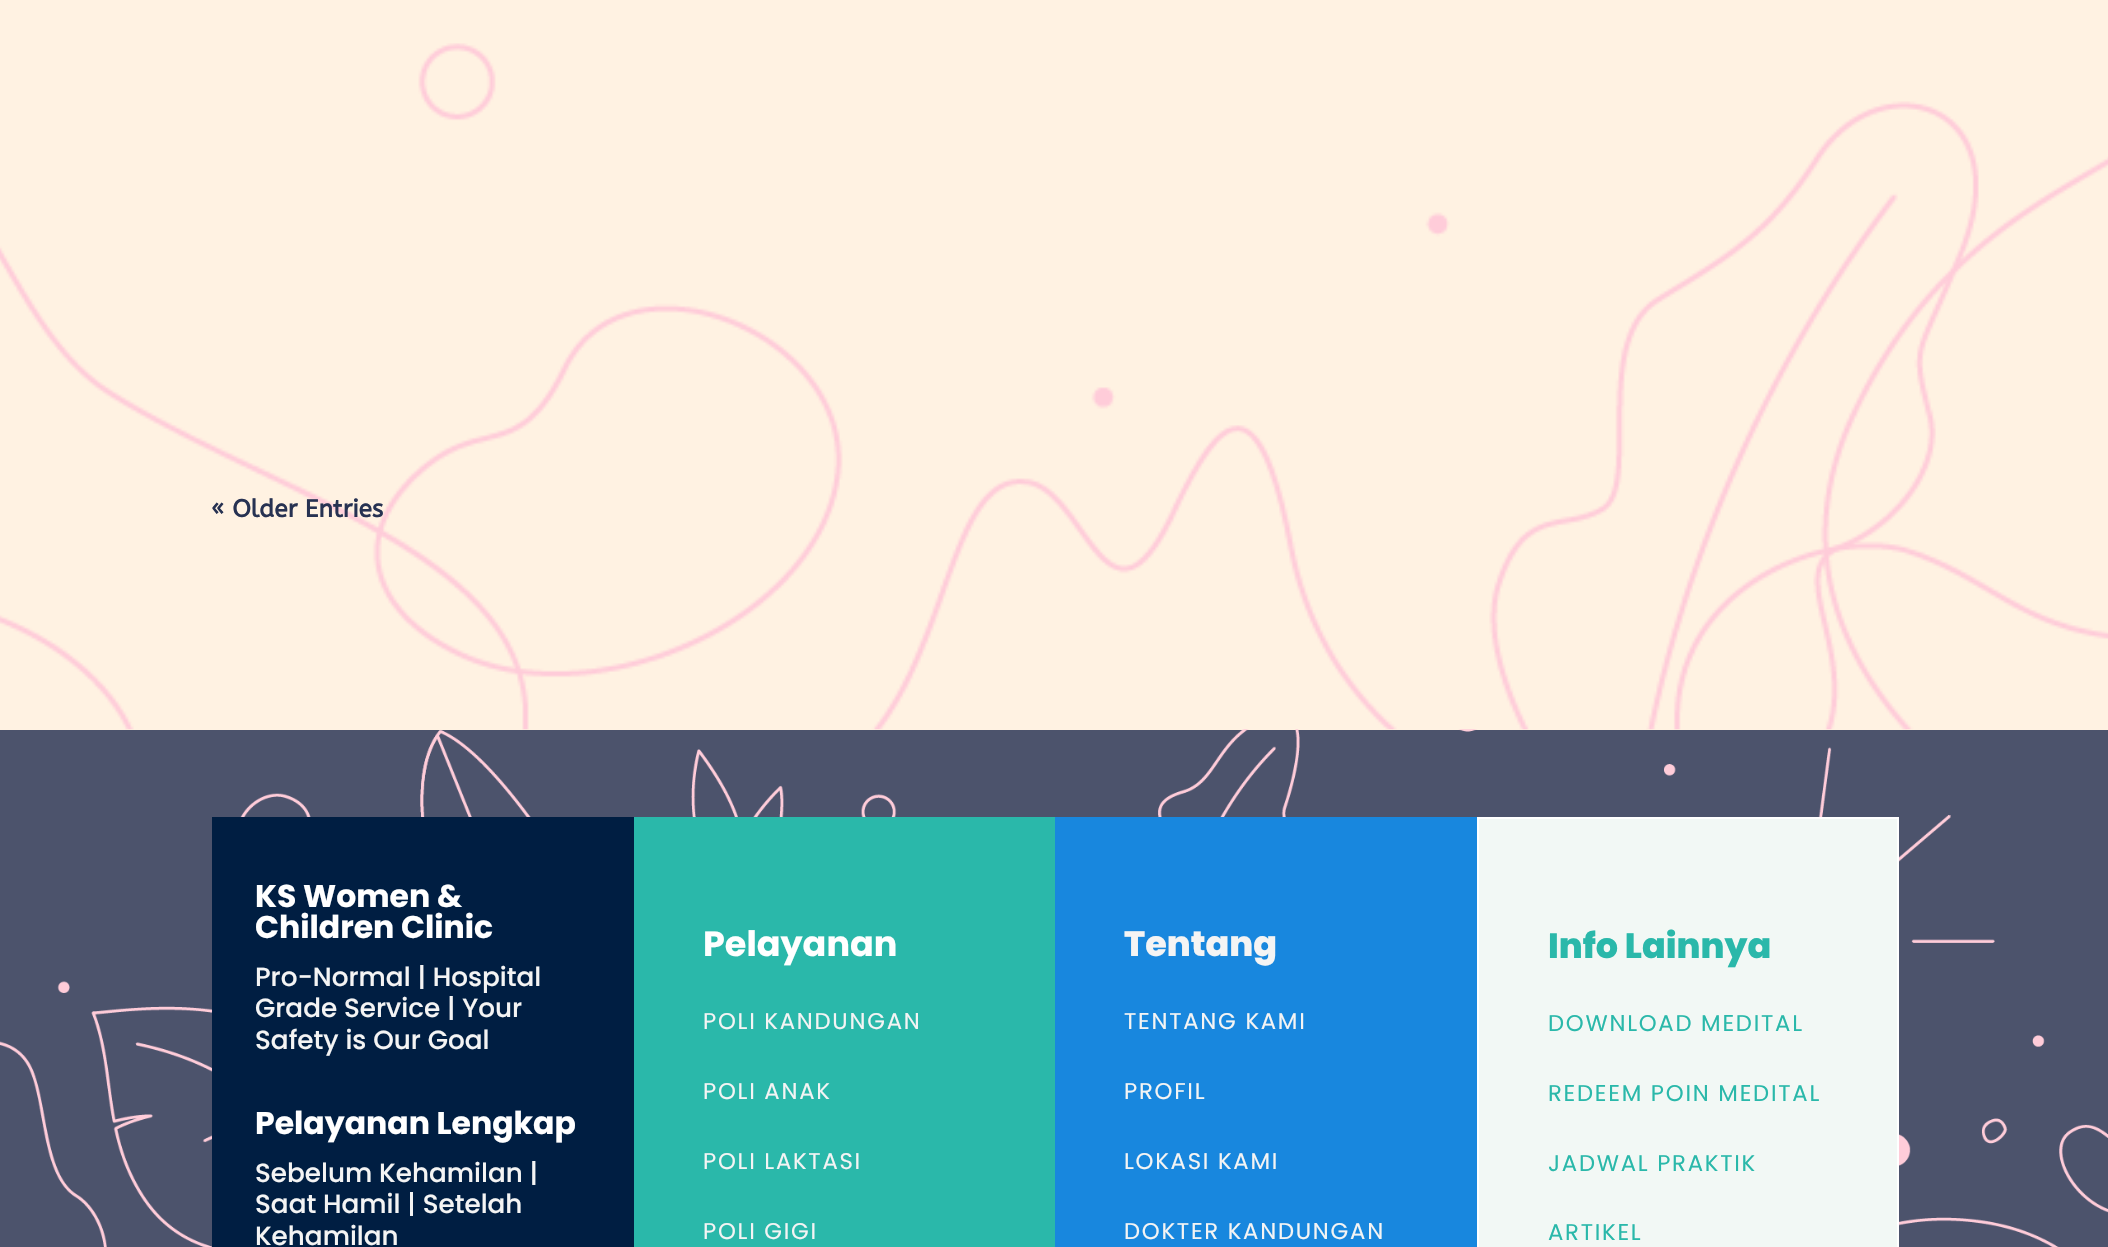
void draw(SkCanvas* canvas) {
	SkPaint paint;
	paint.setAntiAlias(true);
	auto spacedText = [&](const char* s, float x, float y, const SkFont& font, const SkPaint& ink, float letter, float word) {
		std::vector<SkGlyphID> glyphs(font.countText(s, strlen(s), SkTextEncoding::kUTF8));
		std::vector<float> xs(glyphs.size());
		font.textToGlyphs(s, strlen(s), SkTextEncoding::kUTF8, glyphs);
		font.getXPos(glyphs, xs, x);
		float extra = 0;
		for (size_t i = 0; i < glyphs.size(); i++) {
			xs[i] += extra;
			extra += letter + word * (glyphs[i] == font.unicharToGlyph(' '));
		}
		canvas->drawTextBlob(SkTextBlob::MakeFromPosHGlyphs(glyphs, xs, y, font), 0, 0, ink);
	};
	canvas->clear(0xfffff2e2);
	canvas->drawImageRect(SkImages::DeferredFromEncodedData(SkData::MakeFromFileName("img1.png")), SkRect::MakeXYWH(0, 43, 2108, 687), SkSamplingOptions());
	SkFont f1(fontMgr->matchFamilyStyle("ABeeZee", SkFontStyle::Bold()), 24.5);
	f1.setSubpixel(true);
	paint.setColor(0xff273252);
	canvas->drawString("« Older Entries", 211, 517, f1, paint);
	paint.setColor(0xff4c536c);
	canvas->drawRect(SkRect::MakeXYWH(0, 730, 2108, 517), paint);
	canvas->drawImageRect(SkImages::DeferredFromEncodedData(SkData::MakeFromFileName("img2.png")), SkRect::MakeXYWH(0, 729, 2108, 518), SkSamplingOptions());
	paint.setColor(0xff001e42);
	canvas->drawRect(SkRect::MakeXYWH(212, 817, 422, 430), paint);
	SkFont f2(fontMgr->matchFamilyStyle("Poppins", SkFontStyle::Bold()), 31.5);
	f2.setSubpixel(true);
	paint.setColor(0xffffffff);
	canvas->drawString("KS Women &", 255, 907, f2, paint);
	canvas->drawString("Children Clinic", 255, 938, f2, paint);
	SkFont f3(fontMgr->matchFamilyStyle("Poppins", SkFontStyle(500, SkFontStyle::kNormal_Width, SkFontStyle::kUpright_Slant)), 26.25);
	f3.setSubpixel(true);
	paint.setColor(0xfff4f4f4);
	canvas->drawString("Pro-Normal | Hospital", 255, 986, f3, paint);
	canvas->drawString("Grade Service | Your", 255, 1017, f3, paint);
	canvas->drawString("Safety is Our Goal", 255, 1049, f3, paint);
	paint.setColor(0xffffffff);
	canvas->drawString("Pelayanan Lengkap", 255, 1134, f2, paint);
	paint.setColor(0xfff4f4f4);
	canvas->drawString("Sebelum Kehamilan |", 255, 1182, f3, paint);
	canvas->drawString("Saat Hamil | Setelah", 255, 1213, f3, paint);
	canvas->drawString("Kehamilan", 255, 1245, f3, paint);
	paint.setColor(0xff2ab8aa);
	canvas->drawRect(SkRect::MakeXYWH(634, 817, 421, 430), paint);
	SkFont f4(fontMgr->matchFamilyStyle("Poppins", SkFontStyle::Bold()), 35);
	f4.setSubpixel(true);
	paint.setColor(0xffffffff);
	canvas->drawString("Pelayanan", 703, 956, f4, paint);
	SkFont f5(fontMgr->matchFamilyStyle("Poppins", SkFontStyle::Normal()), 22.75);
	f5.setSubpixel(true);
	paint.setColor(0xfff4f4f4);
	spacedText("POLI KANDUNGAN", 703, 1029, f5, paint, 1.75, 0);
	spacedText("POLI ANAK", 703, 1099, f5, paint, 1.75, 0);
	spacedText("POLI LAKTASI", 703, 1169, f5, paint, 1.75, 0);
	spacedText("POLI GIGI", 703, 1239, f5, paint, 1.75, 0);
	paint.setColor(0xff1887de);
	canvas->drawRect(SkRect::MakeXYWH(1055, 817, 422, 430), paint);
	SkFont f6(fontMgr->matchFamilyStyle("Poppins", SkFontStyle(800, SkFontStyle::kNormal_Width, SkFontStyle::kUpright_Slant)), 35);
	f6.setSubpixel(true);
	paint.setColor(0xfff4f4f4);
	canvas->drawString("Tentang", 1124, 956, f6, paint);
	spacedText("TENTANG KAMI", 1124, 1029, f5, paint, 1.75, 0);
	spacedText("PROFIL", 1124, 1099, f5, paint, 1.75, 0);
	spacedText("LOKASI KAMI", 1124, 1169, f5, paint, 1.75, 0);
	spacedText("DOKTER KANDUNGAN", 1124, 1239, f5, paint, 1.75, 0);
	paint.setColor(0xfff2f8f5);
	canvas->drawRect(SkRect::MakeXYWH(1478, 818, 420, 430), paint);
	paint.setStroke(true);
	paint.setStrokeWidth(2);
	paint.setColor(0xffffffff);
	canvas->drawRect(SkRect::MakeXYWH(1478, 818, 420, 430), paint);
	paint.setStroke(false);
	paint.setColor(0xff2ab8aa);
	canvas->drawString("Info Lainnya", 1548, 958, f6, paint);
	spacedText("DOWNLOAD MEDITAL", 1548, 1031, f5, paint, 1.75, 0);
	spacedText("REDEEM POIN MEDITAL", 1548, 1101, f5, paint, 1.75, 0);
	spacedText("JADWAL PRAKTIK", 1548, 1171, f5, paint, 1.75, 0);
	spacedText("ARTIKEL", 1548, 1240, f5, paint, 1.75, 0);
}
